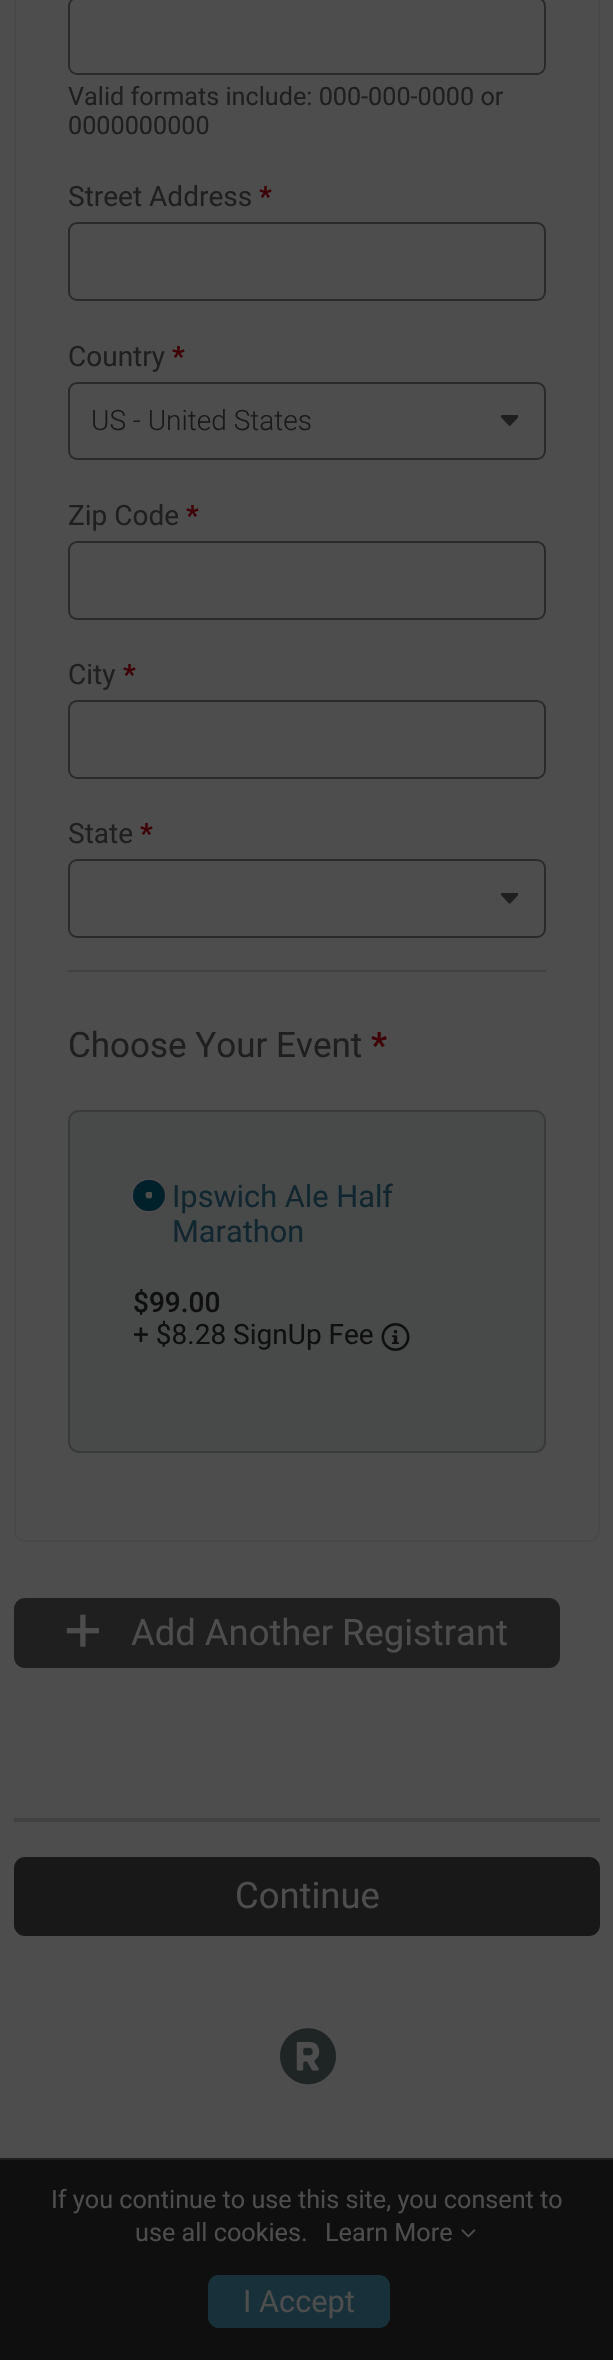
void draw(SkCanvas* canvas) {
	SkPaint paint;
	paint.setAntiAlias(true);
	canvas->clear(0xff4d4d4d);
	paint.setStroke(true);
	paint.setStrokeWidth(2);
	paint.setColor(0xff484848);
	canvas->drawRoundRect(SkRect::MakeXYWH(15, -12, 584, 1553), 10, 10, paint);
	paint.setColor(0xff2a2a2a);
	canvas->drawRoundRect(SkRect::MakeXYWH(69, -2, 476, 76), 8, 8, paint);
	SkFont f1(fontMgr->matchFamilyStyle("Roboto", SkFontStyle::Normal()), 25.2);
	f1.setSubpixel(true);
	paint.setStroke(false);
	paint.setColor(0xff1f1f1f);
	canvas->drawString("Valid formats include: 000-000-0000 or", 68, 105, f1, paint);
	canvas->drawString("0000000000", 68, 134, f1, paint);
	SkFont f2(fontMgr->matchFamilyStyle("Roboto", SkFontStyle::Normal()), 28);
	f2.setSubpixel(true);
	canvas->drawString("Street Address", 68, 206, f2, paint);
	SkFont f3(fontMgr->matchFamilyStyle("Roboto", SkFontStyle::Bold()), 28);
	f3.setSubpixel(true);
	paint.setColor(0xff3e0108);
	canvas->drawString("*", 259, 206, f3, paint);
	paint.setStroke(true);
	paint.setColor(0xff2a2a2a);
	canvas->drawRoundRect(SkRect::MakeXYWH(69, 223, 476, 77), 8, 8, paint);
	paint.setStroke(false);
	paint.setColor(0xff1f1f1f);
	canvas->drawString("Country", 68, 366, f2, paint);
	paint.setColor(0xff3e0108);
	canvas->drawString("*", 172, 366, f3, paint);
	canvas->drawImageRect(SkImages::DeferredFromEncodedData(SkData::MakeFromFileName("img1.png")), SkRect::MakeXYWH(501, 415, 17, 11), SkSamplingOptions());
	paint.setStroke(true);
	paint.setColor(0xff2a2a2a);
	canvas->drawRoundRect(SkRect::MakeXYWH(69, 383, 476, 76), 8, 8, paint);
	SkFont f4(fontMgr->matchFamilyStyle("Roboto", SkFontStyle(300, SkFontStyle::kNormal_Width, SkFontStyle::kUpright_Slant)), 28);
	f4.setSubpixel(true);
	paint.setStroke(false);
	paint.setColor(0xff191919);
	canvas->drawString("US - United States", 91, 430, f4, paint);
	paint.setColor(0xff1f1f1f);
	canvas->drawString("Zip Code", 68, 525, f2, paint);
	paint.setColor(0xff3e0108);
	canvas->drawString("*", 186, 525, f3, paint);
	paint.setStroke(true);
	paint.setColor(0xff2a2a2a);
	canvas->drawRoundRect(SkRect::MakeXYWH(69, 542, 476, 77), 8, 8, paint);
	paint.setStroke(false);
	paint.setColor(0xff1f1f1f);
	canvas->drawString("City", 68, 684, f2, paint);
	paint.setColor(0xff3e0108);
	canvas->drawString("*", 123, 684, f3, paint);
	paint.setStroke(true);
	paint.setColor(0xff2a2a2a);
	canvas->drawRoundRect(SkRect::MakeXYWH(69, 701, 476, 77), 8, 8, paint);
	paint.setStroke(false);
	paint.setColor(0xff1f1f1f);
	canvas->drawString("State", 68, 843, f2, paint);
	paint.setColor(0xff3e0108);
	canvas->drawString("*", 140, 843, f3, paint);
	canvas->drawImageRect(SkImages::DeferredFromEncodedData(SkData::MakeFromFileName("img2.png")), SkRect::MakeXYWH(501, 893, 17, 11), SkSamplingOptions());
	paint.setStroke(true);
	paint.setColor(0xff2a2a2a);
	canvas->drawRoundRect(SkRect::MakeXYWH(69, 860, 476, 77), 8, 8, paint);
	paint.setStroke(false);
	paint.setColor(0xff414141);
	canvas->drawRect(SkRect::MakeXYWH(68, 970, 478, 2), paint);
	SkFont f5(fontMgr->matchFamilyStyle("Roboto", SkFontStyle::Normal()), 35);
	f5.setSubpixel(true);
	paint.setColor(0xff1f1f1f);
	canvas->drawString("Choose Your Event", 68, 1057, f5, paint);
	SkFont f6(fontMgr->matchFamilyStyle("Roboto", SkFontStyle::Bold()), 35);
	f6.setSubpixel(true);
	paint.setColor(0xff3e0108);
	canvas->drawString("*", 371, 1057, f6, paint);
	paint.setColor(0xff484949);
	canvas->drawRoundRect(SkRect::MakeXYWH(69, 1111, 476, 341), 10, 10, paint);
	paint.setStroke(true);
	paint.setColor(0xff383a3b);
	canvas->drawRoundRect(SkRect::MakeXYWH(69, 1111, 476, 341), 10, 10, paint);
	paint.setColor(0xff4c4c4c);
	canvas->drawCircle(148.5, 1195.5, 16.5, paint);
	paint.setStroke(false);
	paint.setColor(0xff00202a);
	canvas->drawRoundRect(SkRect::MakeXYWH(134, 1181, 30, 29), 14.5, 14.5, paint);
	paint.setStroke(true);
	canvas->drawRoundRect(SkRect::MakeXYWH(134, 1181, 30, 29), 14.5, 14.5, paint);
	canvas->save();
	canvas->clipRect(SkRect::MakeXYWH(145, 1192, 7, 7));
	paint.setStroke(false);
	paint.setColor(0xff4d4d4d);
	canvas->drawCircle(149, 1195, 3.5, paint);
	canvas->restore();
	SkFont f7(fontMgr->matchFamilyStyle("Roboto", SkFontStyle::Normal()), 30.75);
	f7.setSubpixel(true);
	paint.setColor(0xff11262e);
	canvas->drawString("Ipswich Ale Half", 172, 1207, f7, paint);
	canvas->drawString("Marathon", 172, 1242, f7, paint);
	SkFont f8(fontMgr->matchFamilyStyle("Roboto", SkFontStyle(500, SkFontStyle::kNormal_Width, SkFontStyle::kUpright_Slant)), 28);
	f8.setSubpixel(true);
	paint.setColor(0xff0f0f0f);
	canvas->drawString("$99.00", 133, 1312, f8, paint);
	canvas->drawString("+ $8.28 SignUp Fee", 133, 1344, f2, paint);
	canvas->drawImageRect(SkImages::DeferredFromEncodedData(SkData::MakeFromFileName("img3.png")), SkRect::MakeXYWH(381, 1323, 29, 28), SkSamplingOptions());
	paint.setColor(0xff1f1f1f);
	canvas->drawRoundRect(SkRect::MakeXYWH(14, 1598, 546, 70), 11, 11, paint);
	canvas->drawImageRect(SkImages::DeferredFromEncodedData(SkData::MakeFromFileName("img4.png")), SkRect::MakeXYWH(66, 1614, 33, 33), SkSamplingOptions());
	SkFont f9(fontMgr->matchFamilyStyle("Roboto", SkFontStyle::Normal()), 36.4);
	f9.setSubpixel(true);
	paint.setColor(0xff4d4d4d);
	canvas->drawString("Add Another Registrant", 131, 1645, f9, paint);
	paint.setColor(0xff414141);
	canvas->drawRect(SkRect::MakeXYWH(14, 1818, 586, 4), paint);
	paint.setColor(0xff181818);
	canvas->drawRoundRect(SkRect::MakeXYWH(14, 1857, 586, 79), 11, 11, paint);
	paint.setColor(0xff4d4d4d);
	canvas->drawString("Continue", 235, 1908, f9, paint);
	canvas->drawImageRect(SkImages::DeferredFromEncodedData(SkData::MakeFromFileName("img5.png")), SkRect::MakeXYWH(280, 2028, 56, 57), SkSamplingOptions());
	paint.setColor(0xff0f0f0f);
	canvas->drawRect(SkRect::MakeXYWH(0, 2160, 613, 200), paint);
	paint.setColor(0xff1f1f1f);
	canvas->drawRect(SkRect::MakeXYWH(0, 2158, 613, 2), paint);
	paint.setColor(0xff4d4d4d);
	canvas->drawString("If you continue to use this site, you consent to", 51, 2208, f1, paint);
	canvas->drawString("use all cookies.", 135, 2241, f1, paint);
	canvas->drawString("Learn More", 325, 2241, f1, paint);
	canvas->drawImageRect(SkImages::DeferredFromEncodedData(SkData::MakeFromFileName("img6.png")), SkRect::MakeXYWH(461, 2229, 15, 9), SkSamplingOptions());
	paint.setColor(0xff173039);
	canvas->drawRoundRect(SkRect::MakeXYWH(208, 2275, 182, 53), 11, 11, paint);
	paint.setColor(0xff4d4d4d);
	canvas->drawString("I Accept", 243, 2312, f7, paint);
}
